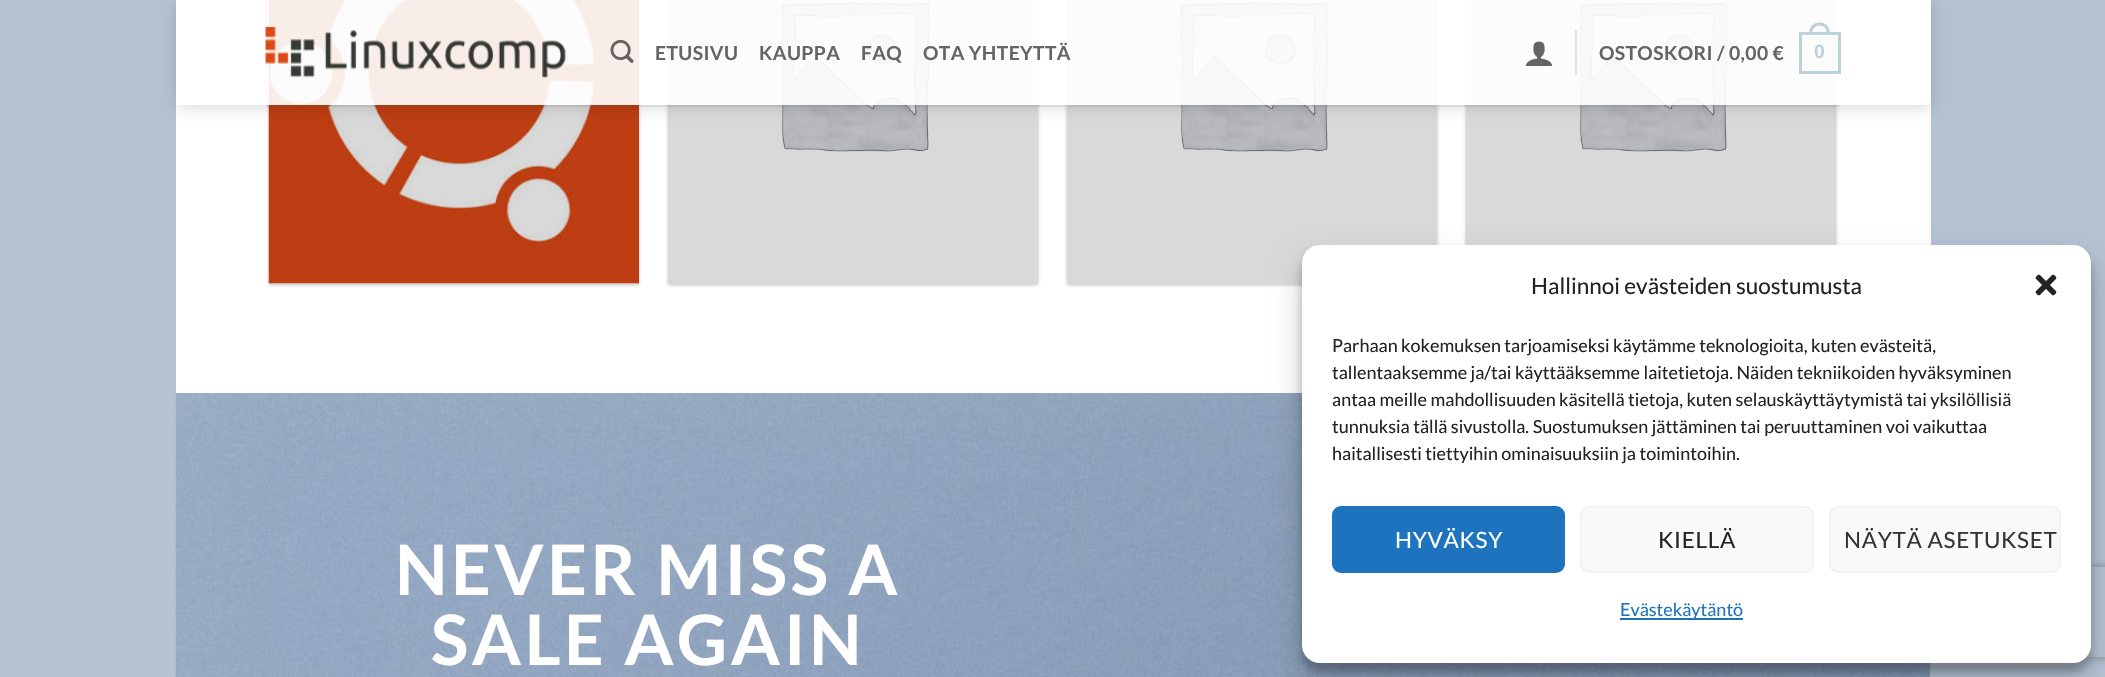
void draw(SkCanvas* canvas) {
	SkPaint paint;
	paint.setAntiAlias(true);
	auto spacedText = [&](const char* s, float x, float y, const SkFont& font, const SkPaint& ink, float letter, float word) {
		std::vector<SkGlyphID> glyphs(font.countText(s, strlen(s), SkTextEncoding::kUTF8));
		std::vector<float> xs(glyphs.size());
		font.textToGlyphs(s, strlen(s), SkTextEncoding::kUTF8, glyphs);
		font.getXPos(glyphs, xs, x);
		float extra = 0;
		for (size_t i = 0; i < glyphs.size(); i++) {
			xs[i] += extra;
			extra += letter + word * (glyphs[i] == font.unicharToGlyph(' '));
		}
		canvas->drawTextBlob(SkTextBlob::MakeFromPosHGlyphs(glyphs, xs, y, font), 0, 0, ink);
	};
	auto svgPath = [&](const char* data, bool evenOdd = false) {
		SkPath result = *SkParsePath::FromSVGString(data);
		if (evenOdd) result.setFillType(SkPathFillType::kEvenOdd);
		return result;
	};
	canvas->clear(0xffb4c2d4);
	paint.setColor(0xffffffff);
	canvas->drawRect(SkRect::MakeXYWH(176, 0, 1755, 393), paint);
	paint.setColor(0x3d000000);
	paint.setMaskFilter(SkMaskFilter::MakeBlur(kNormal_SkBlurStyle, 1.5));
	canvas->drawRect(SkRect::MakeXYWH(269, -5, 370, 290), paint);
	paint.setMaskFilter(nullptr);
	paint.setColor(0xffffffff);
	canvas->drawRect(SkRect::MakeXYWH(269, 283, 370, 1), paint);
	canvas->drawImageRect(SkImages::DeferredFromEncodedData(SkData::MakeFromFileName("img4.png")), SkRect::MakeXYWH(268, 0, 371, 284), SkSamplingOptions());
	paint.setColor(0x26000000);
	canvas->drawRect(SkRect::MakeXYWH(269, 0, 370, 284), paint);
	paint.setColor(0x3d000000);
	paint.setMaskFilter(SkMaskFilter::MakeBlur(kNormal_SkBlurStyle, 1.5));
	canvas->drawRect(SkRect::MakeXYWH(668, -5, 370, 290), paint);
	paint.setMaskFilter(nullptr);
	paint.setColor(0xffffffff);
	canvas->drawRect(SkRect::MakeXYWH(668, 0, 370, 284), paint);
	canvas->drawImageRect(SkImages::DeferredFromEncodedData(SkData::MakeFromFileName("img5.png")), SkRect::MakeXYWH(781, 2, 149, 150), SkSamplingOptions());
	paint.setColor(0x26000000);
	canvas->drawRect(SkRect::MakeXYWH(668, 0, 370, 284), paint);
	paint.setColor(0x3d000000);
	paint.setMaskFilter(SkMaskFilter::MakeBlur(kNormal_SkBlurStyle, 1.5));
	canvas->drawRect(SkRect::MakeXYWH(1067, -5, 370, 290), paint);
	paint.setMaskFilter(nullptr);
	paint.setColor(0xffffffff);
	canvas->drawRect(SkRect::MakeXYWH(1067, 0, 370, 284), paint);
	canvas->drawImageRect(SkImages::DeferredFromEncodedData(SkData::MakeFromFileName("img6.png")), SkRect::MakeXYWH(1180, 2, 149, 150), SkSamplingOptions());
	paint.setColor(0x26000000);
	canvas->drawRect(SkRect::MakeXYWH(1067, 0, 370, 284), paint);
	paint.setColor(0x3d000000);
	paint.setMaskFilter(SkMaskFilter::MakeBlur(kNormal_SkBlurStyle, 1.5));
	canvas->drawRect(SkRect::MakeXYWH(1466, -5, 370, 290), paint);
	paint.setMaskFilter(nullptr);
	paint.setColor(0xffffffff);
	canvas->drawRect(SkRect::MakeXYWH(1466, 0, 370, 245), paint);
	canvas->drawImageRect(SkImages::DeferredFromEncodedData(SkData::MakeFromFileName("img6.png")), SkRect::MakeXYWH(1579, 2, 149, 150), SkSamplingOptions());
	paint.setColor(0x26000000);
	canvas->drawRect(SkRect::MakeXYWH(1466, 0, 370, 245), paint);
	canvas->save();
	canvas->clipPath(svgPath("M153 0H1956V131H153ZM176 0H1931V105H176Z", true), true);
	paint.setMaskFilter(SkMaskFilter::MakeBlur(kNormal_SkBlurStyle, 7.5));
	canvas->drawRect(SkRect::MakeXYWH(177, 2, 1755, 105), paint);
	paint.setMaskFilter(nullptr);
	canvas->restore();
	paint.setColor(0xe6ffffff);
	canvas->drawRect(SkRect::MakeXYWH(267, 0, 1664, 105), paint);
	canvas->drawImageRect(SkImages::DeferredFromEncodedData(SkData::MakeFromFileName("img1.png")), SkRect::MakeXYWH(265, 27, 301, 51), SkSamplingOptions());
	canvas->drawImageRect(SkImages::DeferredFromEncodedData(SkData::MakeFromFileName("img2.png")), SkRect::MakeXYWH(610, 39, 24, 24), SkSamplingOptions());
	SkFont f1(fontMgr->matchFamilyStyle("Lato", SkFontStyle::Bold()), 19.25);
	f1.setSubpixel(true);
	paint.setColor(0xff656565);
	spacedText("ETUSIVU", 655, 60, f1, paint, 0.4, 0);
	spacedText("KAUPPA", 759, 60, f1, paint, 0.4, 0);
	spacedText("FAQ", 861, 60, f1, paint, 0.4, 0);
	spacedText("OTA YHTEYTTÄ", 923, 60, f1, paint, 0.4, 0);
	canvas->drawImageRect(SkImages::DeferredFromEncodedData(SkData::MakeFromFileName("img3.png")), SkRect::MakeXYWH(1525, 41, 28, 25), SkSamplingOptions());
	paint.setColor(0x1a000000);
	canvas->drawRect(SkRect::MakeXYWH(1575, 30, 2, 45), paint);
	paint.setColor(0xff656565);
	spacedText("OSTOSKORI / 0,00 €", 1599, 60, f1, paint, 0.4, 0);
	paint.setStroke(true);
	paint.setStrokeWidth(3);
	paint.setColor(0xffbbd2d9);
	canvas->drawRect(SkRect::MakeXYWH(1800.5, 33.5, 39, 39), paint);
	paint.setStroke(false);
	canvas->drawPath(svgPath("M1819.5 22.5C1826.5 22.5 1830 28 1830 34.5H1809C1809 28 1812.5 22.5 1819.5 22.5ZM1819.5 25.5C1825 25.5 1827 30 1827 34.5H1812C1812 30 1814 25.5 1819.5 25.5Z", true), paint);
	SkFont f2(fontMgr->matchFamilyStyle("Liberation Sans", SkFontStyle::Bold()), 19.25);
	f2.setSubpixel(true);
	spacedText("0", 1814, 58, f2, paint, 0.4, 0);
	paint.setColor(0x1a4a4a4a);
	canvas->drawRect(SkRect::MakeXYWH(266, 105, 1575, 2), paint);
	paint.setColor(0xffbbd2d9);
	canvas->drawRect(SkRect::MakeXYWH(1930, 663, 1, 14), paint);
	canvas->drawImageRect(SkImages::DeferredFromEncodedData(SkData::MakeFromFileName("img7.png")), SkRect::MakeXYWH(175, 393, 1756, 284), SkSamplingOptions());
	SkFont f3(fontMgr->matchFamilyStyle("Lato", SkFontStyle::Bold()), 69.5);
	f3.setSubpixel(true);
	paint.setColor(0xffffffff);
	spacedText("NEVER MISS A", 395, 595, f3, paint, 3.5, 0);
	spacedText("SALE AGAIN", 431, 665, f3, paint, 3.5, 0);
	paint.setColor(0x3b000000);
	paint.setMaskFilter(SkMaskFilter::MakeBlur(kNormal_SkBlurStyle, 4.5));
	canvas->drawRoundRect(SkRect::MakeXYWH(1302, 254, 789, 418), 18, 18, paint);
	paint.setMaskFilter(nullptr);
	paint.setColor(0x30000000);
	paint.setMaskFilter(SkMaskFilter::MakeBlur(kNormal_SkBlurStyle, 15));
	canvas->drawRoundRect(SkRect::MakeXYWH(1302, 260, 789, 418), 18, 18, paint);
	paint.setMaskFilter(nullptr);
	canvas->save();
	canvas->clipPath(svgPath("M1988 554H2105V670H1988ZM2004 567H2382C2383.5 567 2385 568.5 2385 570V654C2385 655.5 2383.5 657 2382 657H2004C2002.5 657 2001 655.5 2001 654V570C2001 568.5 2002.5 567 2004 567Z", true), true);
	paint.setColor(0xff808080);
	paint.setMaskFilter(SkMaskFilter::MakeBlur(kNormal_SkBlurStyle, 4));
	canvas->drawRoundRect(SkRect::MakeXYWH(2001, 567, 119, 90), 3, 3, paint);
	paint.setMaskFilter(nullptr);
	canvas->restore();
	paint.setColor(0xffffffff);
	canvas->drawRoundRect(SkRect::MakeXYWH(1302, 245, 789, 418), 18, 18, paint);
	SkFont f4(fontMgr->matchFamilyStyle("Lato", SkFontStyle::Normal()), 22.5);
	f4.setSubpixel(true);
	paint.setColor(0xff222222);
	canvas->drawString("Hallinnoi evästeiden suostumusta", 1531, 294, f4, paint);
	canvas->drawImageRect(SkImages::DeferredFromEncodedData(SkData::MakeFromFileName("img8.png")), SkRect::MakeXYWH(2035, 274, 22, 22), SkSamplingOptions());
	SkFont f5(fontMgr->matchFamilyStyle("Lato", SkFontStyle::Normal()), 18);
	f5.setSubpixel(true);
	canvas->drawString("Parhaan kokemuksen tarjoamiseksi käytämme teknologioita, kuten evästeitä,", 1332, 352, f5, paint);
	canvas->drawString("tallentaaksemme ja/tai käyttääksemme laitetietoja. Näiden tekniikoiden hyväksyminen", 1332, 379, f5, paint);
	canvas->drawString("antaa meille mahdollisuuden käsitellä tietoja, kuten selauskäyttäytymistä tai yksilöllisiä", 1332, 406, f5, paint);
	canvas->drawString("tunnuksia tällä sivustolla. Suostumuksen jättäminen tai peruuttaminen voi vaikuttaa", 1332, 433, f5, paint);
	canvas->drawString("haitallisesti tiettyihin ominaisuuksiin ja toimintoihin.", 1332, 460, f5, paint);
	paint.setColor(0xff1e73be);
	canvas->drawRoundRect(SkRect::MakeXYWH(1333, 507, 231, 65), 8, 8, paint);
	paint.setStroke(true);
	paint.setStrokeWidth(2);
	canvas->drawRoundRect(SkRect::MakeXYWH(1333, 507, 231, 65), 8, 8, paint);
	paint.setStroke(false);
	paint.setColor(0xffffffff);
	spacedText("HYVÄKSY", 1395, 548, f4, paint, 0.7, 0);
	paint.setColor(0xfff9f9f9);
	canvas->drawRoundRect(SkRect::MakeXYWH(1581, 507, 232, 65), 8, 8, paint);
	paint.setStroke(true);
	paint.setColor(0xfff2f2f2);
	canvas->drawRoundRect(SkRect::MakeXYWH(1581, 507, 232, 65), 8, 8, paint);
	paint.setStroke(false);
	paint.setColor(0xff222222);
	spacedText("KIELLÄ", 1658, 548, f4, paint, 0.7, 0);
	paint.setColor(0xfff9f9f9);
	canvas->drawRoundRect(SkRect::MakeXYWH(1830, 507, 230, 65), 8, 8, paint);
	paint.setStroke(true);
	paint.setColor(0xfff2f2f2);
	canvas->drawRoundRect(SkRect::MakeXYWH(1830, 507, 230, 65), 8, 8, paint);
	paint.setStroke(false);
	paint.setColor(0xff333333);
	spacedText("NÄYTÄ ASETUKSET", 1844, 548, f4, paint, 0.7, 0);
	paint.setColor(0xff1e73be);
	canvas->drawRect(SkRect::MakeXYWH(1620, 618, 123, 2), paint);
	canvas->drawString("Evästekäytäntö", 1620, 616, f5, paint);
}
